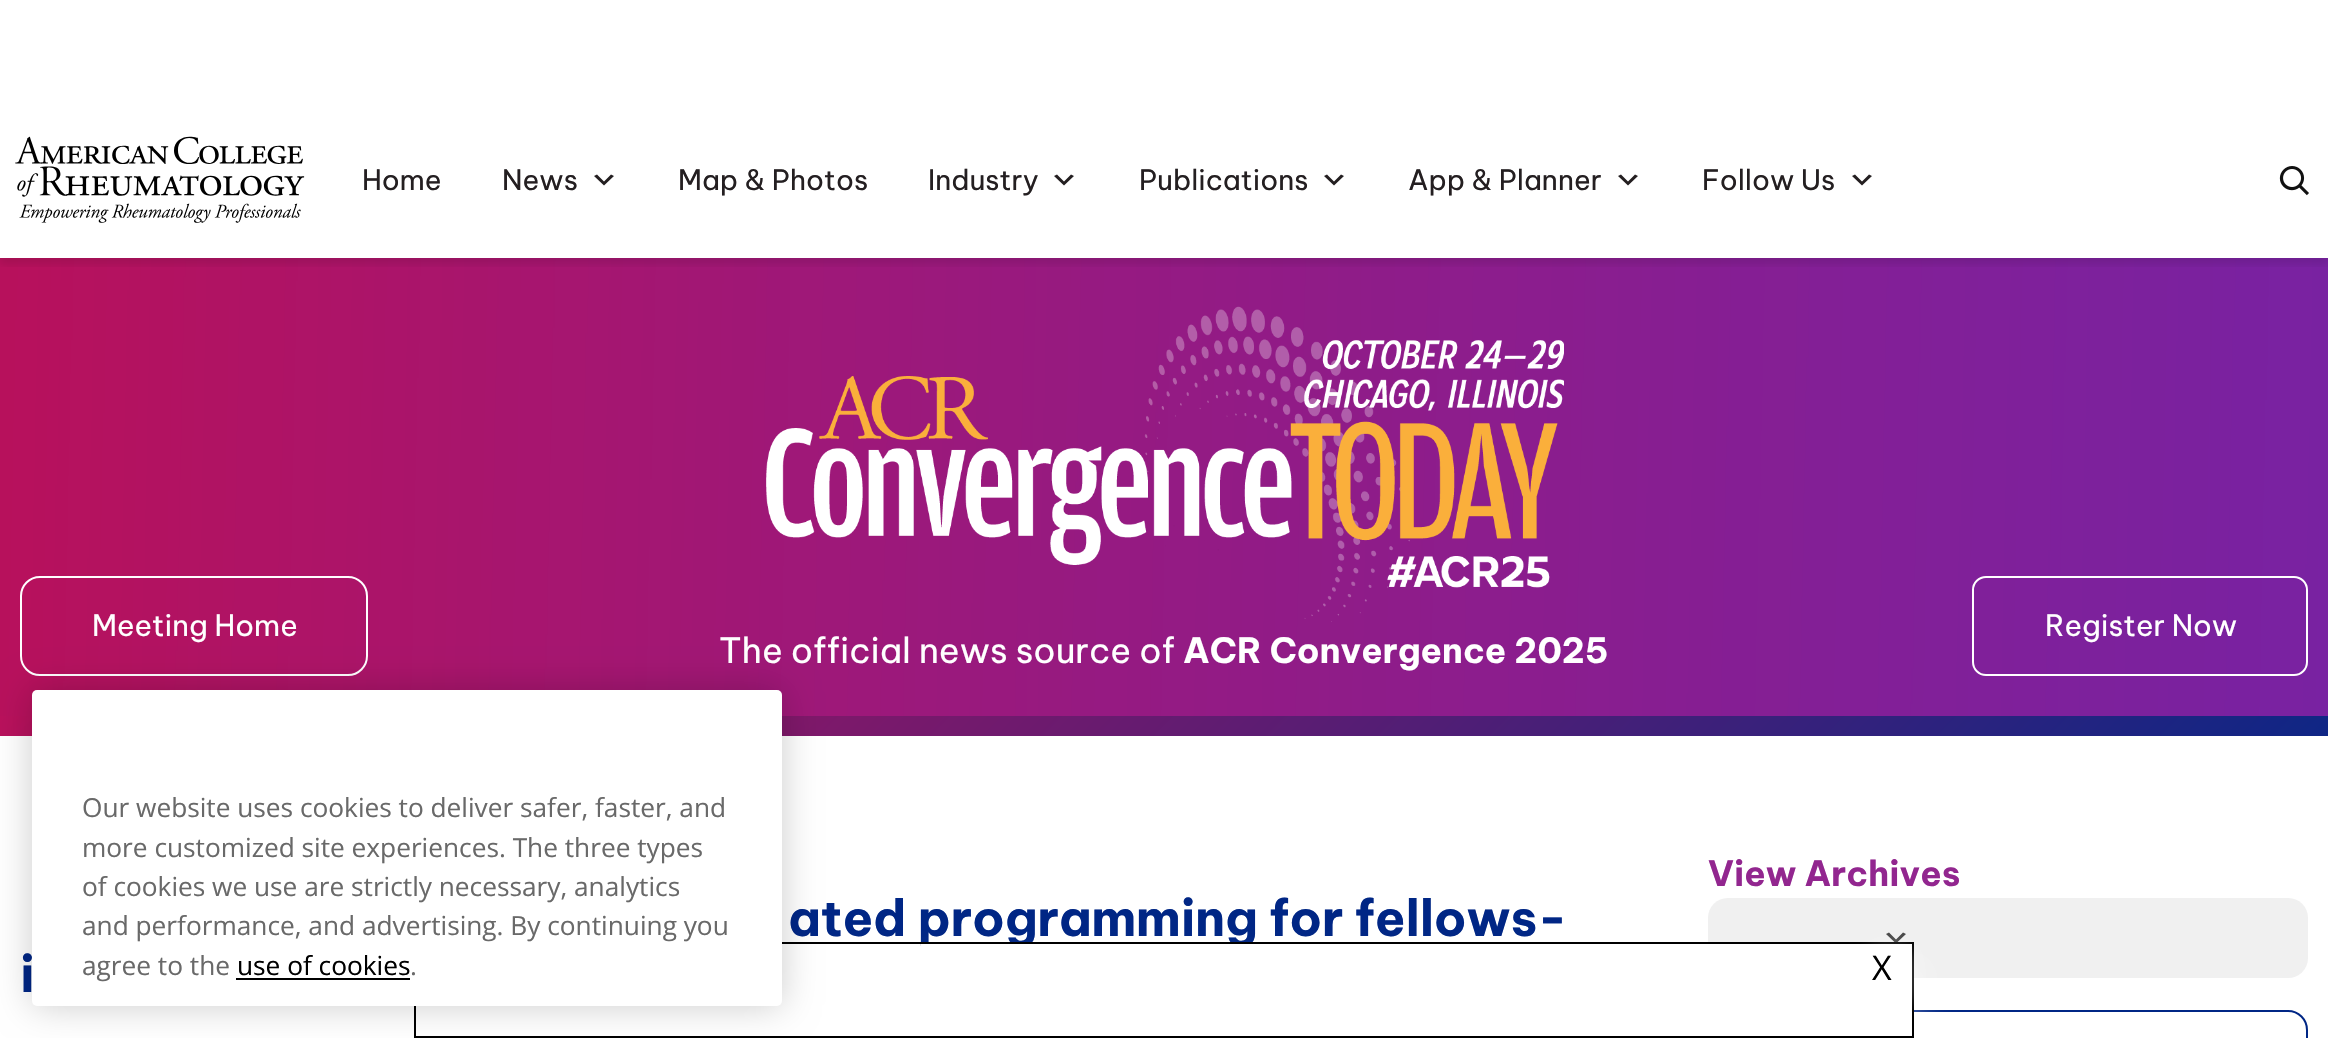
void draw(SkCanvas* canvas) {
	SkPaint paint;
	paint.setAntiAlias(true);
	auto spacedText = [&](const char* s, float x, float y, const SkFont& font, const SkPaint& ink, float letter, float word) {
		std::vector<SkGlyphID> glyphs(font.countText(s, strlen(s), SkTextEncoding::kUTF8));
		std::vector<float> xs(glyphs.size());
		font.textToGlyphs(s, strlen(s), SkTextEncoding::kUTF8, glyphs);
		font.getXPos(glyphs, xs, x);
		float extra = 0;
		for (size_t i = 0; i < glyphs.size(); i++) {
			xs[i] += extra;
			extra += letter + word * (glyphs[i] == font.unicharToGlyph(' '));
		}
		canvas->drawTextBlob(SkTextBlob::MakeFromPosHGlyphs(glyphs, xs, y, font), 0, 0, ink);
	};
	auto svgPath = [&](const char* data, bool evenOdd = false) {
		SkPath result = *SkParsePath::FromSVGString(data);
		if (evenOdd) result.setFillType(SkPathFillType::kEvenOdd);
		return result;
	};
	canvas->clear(0xffffffff);
	canvas->drawImageRect(SkImages::DeferredFromEncodedData(SkData::MakeFromFileName("img3.png")), SkRect::MakeXYWH(0, 258, 2328, 458), SkSamplingOptions());
	canvas->save();
	canvas->clipRect(SkRect::MakeXYWH(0, 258, 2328, 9));
	paint.setColor(0x1a000000);
	paint.setMaskFilter(SkMaskFilter::MakeBlur(kNormal_SkBlurStyle, 4));
	canvas->drawRect(SkRect::MakeXYWH(0, 138, 2328, 126), paint);
	paint.setMaskFilter(nullptr);
	canvas->restore();
	canvas->drawImageRect(SkImages::DeferredFromEncodedData(SkData::MakeFromFileName("img1.png")), SkRect::MakeXYWH(15, 136, 290, 87), SkSamplingOptions());
	SkFont f1(fontMgr->matchFamilyStyle("Be Vietnam Pro", SkFontStyle::Normal()), 28);
	f1.setSubpixel(true);
	paint.setColor(0xff241f21);
	canvas->drawString("Home", 362, 190, f1, paint);
	canvas->drawString("News", 502, 190, f1, paint);
	canvas->drawPath(svgPath("M597 174.5L604 181.5L611 174.5L614 176L604 185.5L594 176Z"), paint);
	canvas->drawString("Map & Photos", 678, 190, f1, paint);
	canvas->drawString("Industry", 928, 190, f1, paint);
	canvas->drawPath(svgPath("M1057 174.5L1064 181.5L1071 174.5L1074 176L1064 185.5L1054 176Z"), paint);
	canvas->drawString("Publications", 1139, 190, f1, paint);
	canvas->drawPath(svgPath("M1327 174.5L1334 181.5L1341 174.5L1344 176L1334 185.5L1324 176Z"), paint);
	canvas->drawString("App & Planner", 1408, 190, f1, paint);
	canvas->drawPath(svgPath("M1621 174.5L1628 181.5L1635 174.5L1638 176L1628 185.5L1618 176Z"), paint);
	canvas->drawString("Follow Us", 1702, 190, f1, paint);
	canvas->drawPath(svgPath("M1855 174.5L1862 181.5L1869 174.5L1872 176L1862 185.5L1852 176Z"), paint);
	canvas->drawImageRect(SkImages::DeferredFromEncodedData(SkData::MakeFromFileName("img2.png")), SkRect::MakeXYWH(2279, 166, 30, 30), SkSamplingOptions());
	paint.setStroke(true);
	paint.setStrokeWidth(2);
	paint.setColor(0xffffffff);
	canvas->drawRoundRect(SkRect::MakeXYWH(21, 577, 346, 98), 19, 19, paint);
	SkFont f2(fontMgr->matchFamilyStyle("Be Vietnam Pro", SkFontStyle::Normal()), 29.25);
	f2.setSubpixel(true);
	paint.setStroke(false);
	canvas->drawString("Meeting Home", 92, 636, f2, paint);
	paint.setStroke(true);
	canvas->drawRoundRect(SkRect::MakeXYWH(1973, 577, 334, 98), 13, 13, paint);
	paint.setStroke(false);
	canvas->drawString("Register Now", 2045, 636, f2, paint);
	canvas->drawImageRect(SkImages::DeferredFromEncodedData(SkData::MakeFromFileName("img4.png")), SkRect::MakeXYWH(766, 306, 798, 316), SkSamplingOptions());
	SkFont f3(fontMgr->matchFamilyStyle("Be Vietnam Pro", SkFontStyle::Normal()), 34.8);
	f3.setSubpixel(true);
	canvas->drawString("The official news source of", 719, 663, f3, paint);
	SkFont f4(fontMgr->matchFamilyStyle("Be Vietnam Pro", SkFontStyle::Bold()), 34.8);
	f4.setSubpixel(true);
	canvas->drawString("ACR Convergence 2025", 1183, 663, f4, paint);
	{
		const SkColor colors[] = {0xffb9115c, 0xff0f2685};
		const float stops[] = {0, 1};
		const SkPoint ends[] = {{577, 139}, {1751, 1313}};
		paint.setShader(SkGradientShader::MakeLinear(ends, colors, stops, 2, SkTileMode::kClamp));
		paint.setAlpha(255);
	}
	canvas->drawRect(SkRect::MakeXYWH(0, 716, 2328, 20), paint);
	paint.setShader(nullptr);
	paint.setColor(0xff92268f);
	canvas->drawString("View Archives", 1708, 886, f4, paint);
	paint.setColor(0xfff0f0f0);
	canvas->drawRoundRect(SkRect::MakeXYWH(1708, 898, 600, 80), 20, 20, paint);
	paint.setColor(0xff454545);
	canvas->drawPath(svgPath("M1889 932.5L1896 939.5L1903 932.5L1906 934L1896 943.5L1886 934Z"), paint);
	paint.setStroke(true);
	paint.setColor(0xff002685);
	canvas->drawRoundRect(SkRect::MakeXYWH(1709, 1011, 598, 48), 19, 19, paint);
	SkFont f5(fontMgr->matchFamilyStyle("Be Vietnam Pro", SkFontStyle::Bold()), 50);
	f5.setSubpixel(true);
	paint.setStroke(false);
	spacedText("ated programming for fellows-", 788, 936, f5, paint, -0.2, 0);
	spacedText("i", 20, 992, f5, paint, -0.2, 0);
	paint.setColor(0x3bffffff);
	paint.setMaskFilter(SkMaskFilter::MakeBlur(kNormal_SkBlurStyle, 14));
	canvas->drawRect(SkRect::MakeXYWH(436, 964, 1488, 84), paint);
	paint.setMaskFilter(nullptr);
	paint.setColor(0xffffffff);
	canvas->drawRect(SkRect::MakeXYWH(921, 944, 991, 92), paint);
	paint.setStroke(true);
	paint.setColor(0xff000000);
	canvas->drawRect(SkRect::MakeXYWH(415, 943, 1498, 94), paint);
	paint.setStroke(false);
	paint.setColor(0x33000000);
	paint.setMaskFilter(SkMaskFilter::MakeBlur(kNormal_SkBlurStyle, 18));
	canvas->drawRoundRect(SkRect::MakeXYWH(32, 690, 750, 316), 5, 5, paint);
	paint.setMaskFilter(nullptr);
	paint.setColor(0xffffffff);
	canvas->drawRoundRect(SkRect::MakeXYWH(32, 690, 750, 316), 5, 5, paint);
	SkFont f6(fontMgr->matchFamilyStyle("Open Sans", SkFontStyle::Normal()), 26.25);
	f6.setSubpixel(true);
	paint.setColor(0xff696969);
	canvas->drawString("Our website uses cookies to deliver safer, faster, and", 82, 817, f6, paint);
	canvas->drawString("more customized site experiences. The three types", 82, 857, f6, paint);
	canvas->drawString("of cookies we use are strictly necessary, analytics", 82, 896, f6, paint);
	canvas->drawString("and performance, and advertising. By continuing you", 82, 935, f6, paint);
	canvas->drawString("agree to the", 82, 975, f6, paint);
	paint.setColor(0xff000000);
	canvas->drawString("use of cookies", 237, 975, f6, paint);
	canvas->drawRect(SkRect::MakeXYWH(236, 978, 174, 2), paint);
	paint.setColor(0xff696969);
	canvas->drawString(".", 410, 975, f6, paint);
	canvas->save();
	canvas->clipPath(svgPath("M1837 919H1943V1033H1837ZM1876 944H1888C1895.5 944 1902 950.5 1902 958V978C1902 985.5 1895.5 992 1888 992H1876C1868.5 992 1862 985.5 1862 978V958C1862 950.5 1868.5 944 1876 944Z", true), true);
	paint.setColor(0x3bffffff);
	paint.setMaskFilter(SkMaskFilter::MakeBlur(kNormal_SkBlurStyle, 8));
	canvas->drawRoundRect(SkRect::MakeXYWH(1862, 944, 56, 64), 22, 22, paint);
	paint.setMaskFilter(nullptr);
	canvas->restore();
	SkFont f7(fontMgr->matchFamilyStyle("Open Sans", SkFontStyle::Normal()), 34);
	f7.setSubpixel(true);
	paint.setColor(0xff000000);
	canvas->drawString("X", 1872, 980, f7, paint);
}
